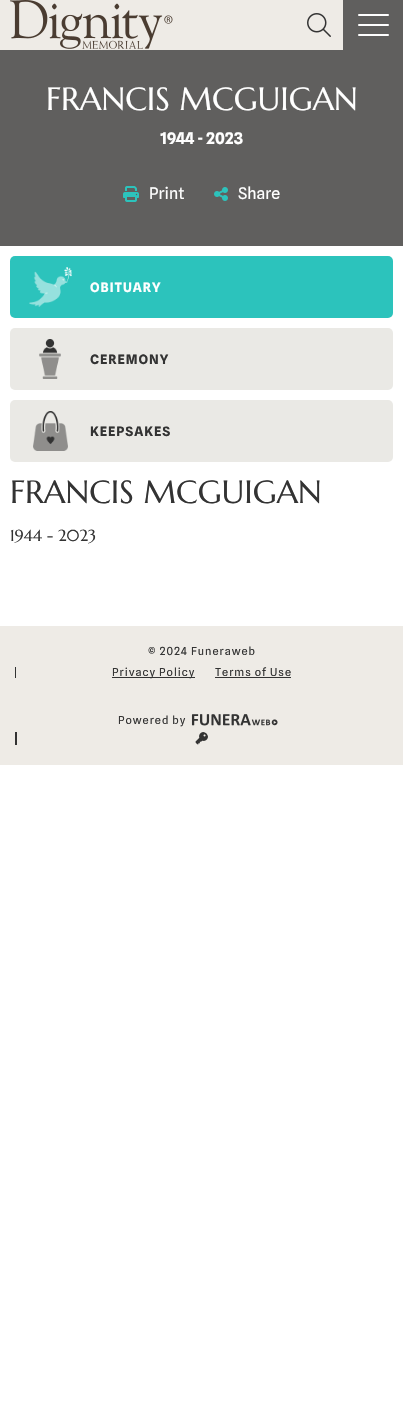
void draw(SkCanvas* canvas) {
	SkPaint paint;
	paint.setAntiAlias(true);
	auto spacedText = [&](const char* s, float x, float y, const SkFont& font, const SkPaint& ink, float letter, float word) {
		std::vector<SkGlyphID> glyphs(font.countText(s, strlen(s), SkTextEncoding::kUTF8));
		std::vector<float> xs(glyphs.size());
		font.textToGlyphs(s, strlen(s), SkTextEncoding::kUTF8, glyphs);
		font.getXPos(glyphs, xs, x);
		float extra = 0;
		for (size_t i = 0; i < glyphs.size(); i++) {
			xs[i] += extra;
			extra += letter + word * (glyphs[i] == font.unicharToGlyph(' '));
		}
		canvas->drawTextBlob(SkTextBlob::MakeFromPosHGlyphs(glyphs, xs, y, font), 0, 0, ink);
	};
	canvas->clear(0xffffffff);
	paint.setColor(0xffeeebe6);
	canvas->drawRect(SkRect::MakeXYWH(0, 0, 343, 50), paint);
	canvas->drawImageRect(SkImages::DeferredFromEncodedData(SkData::MakeFromFileName("img1.png")), SkRect::MakeXYWH(10, 0, 163, 49), SkSamplingOptions());
	canvas->drawImageRect(SkImages::DeferredFromEncodedData(SkData::MakeFromFileName("img2.png")), SkRect::MakeXYWH(307, 13, 24, 24), SkSamplingOptions());
	paint.setColor(0xff605f5e);
	canvas->drawRect(SkRect::MakeXYWH(343, 0, 60, 50), paint);
	paint.setColor(0xffffffff);
	canvas->drawRoundRect(SkRect::MakeXYWH(358, 24, 31, 2), 1, 1, paint);
	canvas->drawRoundRect(SkRect::MakeXYWH(358, 14, 31, 2), 1, 1, paint);
	canvas->drawRoundRect(SkRect::MakeXYWH(358, 34, 31, 2), 1, 1, paint);
	paint.setColor(0xff605f5e);
	canvas->drawRect(SkRect::MakeXYWH(0, 50, 403, 196), paint);
	SkFont f1(fontMgr->matchFamilyStyle("Marcellus", SkFontStyle::Normal()), 32);
	f1.setSubpixel(true);
	paint.setColor(0xffffffff);
	canvas->drawString("FRANCIS MCGUIGAN", 46, 110, f1, paint);
	SkFont f2(fontMgr->matchFamilyStyle("Spline Sans", SkFontStyle::Bold()), 16);
	f2.setSubpixel(true);
	canvas->drawString("1944 - 2023", 160, 144, f2, paint);
	canvas->drawImageRect(SkImages::DeferredFromEncodedData(SkData::MakeFromFileName("img3.png")), SkRect::MakeXYWH(123, 186, 16, 16), SkSamplingOptions());
	SkFont f3(fontMgr->matchFamilyStyle("Spline Sans", SkFontStyle::Normal()), 16);
	f3.setSubpixel(true);
	canvas->drawString("Print", 149, 199, f3, paint);
	canvas->drawImageRect(SkImages::DeferredFromEncodedData(SkData::MakeFromFileName("img4.png")), SkRect::MakeXYWH(214, 187, 14, 14), SkSamplingOptions());
	canvas->drawString("Share", 238, 199, f3, paint);
	paint.setColor(0xff2cc3bc);
	canvas->drawRoundRect(SkRect::MakeXYWH(10, 256, 383, 62), 5, 5, paint);
	canvas->drawImageRect(SkImages::DeferredFromEncodedData(SkData::MakeFromFileName("img5.png")), SkRect::MakeXYWH(29, 267, 43, 40), SkSamplingOptions());
	SkFont f4(fontMgr->matchFamilyStyle("Spline Sans", SkFontStyle::Bold()), 13);
	f4.setSubpixel(true);
	paint.setColor(0xffffffff);
	spacedText("OBITUARY", 90, 292, f4, paint, 1, 0);
	paint.setColor(0xffeae9e5);
	canvas->drawRoundRect(SkRect::MakeXYWH(10, 328, 383, 62), 5, 5, paint);
	canvas->drawImageRect(SkImages::DeferredFromEncodedData(SkData::MakeFromFileName("img6.png")), SkRect::MakeXYWH(39, 339, 22, 40), SkSamplingOptions());
	paint.setColor(0xff333333);
	spacedText("CEREMONY", 90, 364, f4, paint, 1, 0);
	paint.setColor(0xffeae9e5);
	canvas->drawRoundRect(SkRect::MakeXYWH(10, 400, 383, 62), 5, 5, paint);
	canvas->drawImageRect(SkImages::DeferredFromEncodedData(SkData::MakeFromFileName("img7.png")), SkRect::MakeXYWH(33, 411, 35, 40), SkSamplingOptions());
	paint.setColor(0xff333333);
	spacedText("KEEPSAKES", 90, 436, f4, paint, 1, 0);
	canvas->drawString("FRANCIS MCGUIGAN", 10, 503, f1, paint);
	SkFont f5(fontMgr->matchFamilyStyle("Marcellus", SkFontStyle::Normal()), 16);
	f5.setSubpixel(true);
	canvas->drawString("1944 - 2023", 10, 541, f5, paint);
	paint.setColor(0xffeeebe6);
	canvas->drawRect(SkRect::MakeXYWH(0, 626, 403, 139), paint);
	SkFont f6(fontMgr->matchFamilyStyle("Spline Sans", SkFontStyle::Normal()), 11);
	f6.setSubpixel(true);
	paint.setColor(0xff333333);
	spacedText("© 2024 Funeraweb", 148, 655, f6, paint, 1, 0);
	canvas->drawRect(SkRect::MakeXYWH(15, 667, 1, 11), paint);
	canvas->drawRect(SkRect::MakeXYWH(112, 677, 83, 1), paint);
	spacedText("Privacy Policy", 112, 676, f6, paint, 1, 0);
	spacedText("Terms of Use", 215, 676, f6, paint, 1, 0);
	canvas->drawRect(SkRect::MakeXYWH(215, 677, 76, 1), paint);
	spacedText("Powered by", 118, 724, f6, paint, 1, 0);
	canvas->drawImageRect(SkImages::DeferredFromEncodedData(SkData::MakeFromFileName("img8.png")), SkRect::MakeXYWH(191, 714, 87, 12), SkSamplingOptions());
	canvas->drawRect(SkRect::MakeXYWH(15, 732, 2, 13), paint);
	canvas->drawImageRect(SkImages::DeferredFromEncodedData(SkData::MakeFromFileName("img9.png")), SkRect::MakeXYWH(195, 732, 13, 13), SkSamplingOptions());
}
